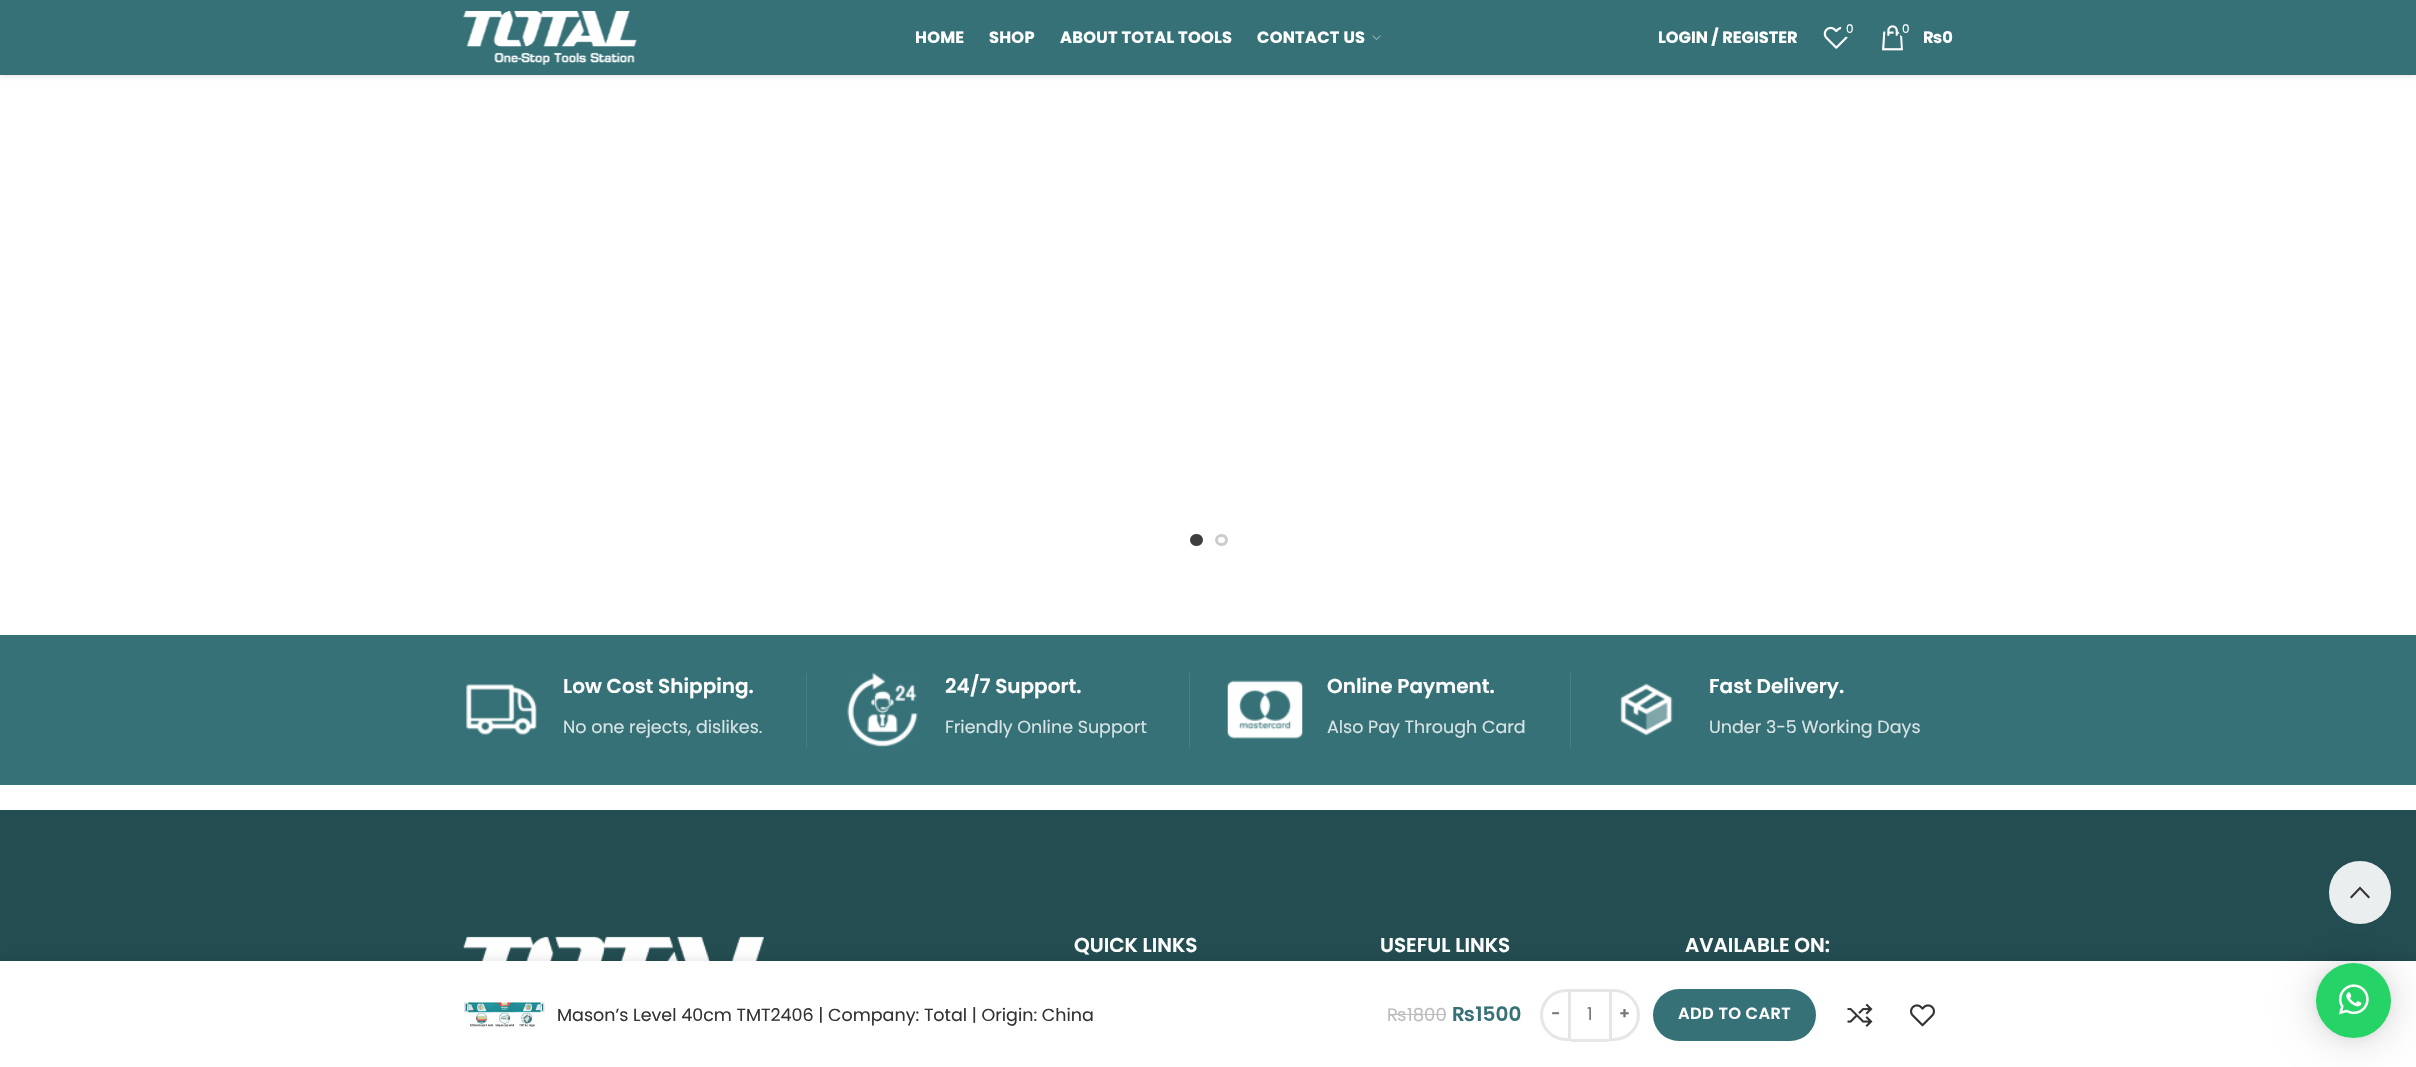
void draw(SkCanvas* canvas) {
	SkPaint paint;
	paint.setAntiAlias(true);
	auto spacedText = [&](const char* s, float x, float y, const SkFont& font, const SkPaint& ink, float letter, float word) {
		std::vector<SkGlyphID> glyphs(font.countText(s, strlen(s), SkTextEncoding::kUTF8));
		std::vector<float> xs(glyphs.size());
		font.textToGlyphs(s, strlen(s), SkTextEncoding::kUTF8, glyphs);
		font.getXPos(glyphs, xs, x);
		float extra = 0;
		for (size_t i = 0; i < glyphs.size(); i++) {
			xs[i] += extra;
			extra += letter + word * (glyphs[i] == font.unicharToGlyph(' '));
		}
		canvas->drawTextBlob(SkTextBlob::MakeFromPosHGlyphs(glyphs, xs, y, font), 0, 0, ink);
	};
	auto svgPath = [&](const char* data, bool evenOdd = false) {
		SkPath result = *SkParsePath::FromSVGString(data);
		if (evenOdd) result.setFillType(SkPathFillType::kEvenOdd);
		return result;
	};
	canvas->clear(0xffffffff);
	paint.setColor(0x1a000000);
	paint.setMaskFilter(SkMaskFilter::MakeBlur(kNormal_SkBlurStyle, 2));
	canvas->drawRect(SkRect::MakeXYWH(0, 1, 2416, 75), paint);
	paint.setMaskFilter(nullptr);
	paint.setColor(0xff357177);
	canvas->drawRect(SkRect::MakeXYWH(0, 0, 2416, 75), paint);
	canvas->drawImageRect(SkImages::DeferredFromEncodedData(SkData::MakeFromFileName("img1.png")), SkRect::MakeXYWH(463, 11, 174, 55), SkSamplingOptions());
	SkFont f1(fontMgr->matchFamilyStyle("Poppins", SkFontStyle::Bold()), 16.25);
	f1.setSubpixel(true);
	paint.setColor(0xffffffff);
	spacedText("HOME", 915, 43, f1, paint, 0.25, 0);
	spacedText("SHOP", 989, 43, f1, paint, 0.25, 0);
	spacedText("ABOUT TOTAL TOOLS", 1060, 43, f1, paint, 0.25, 0);
	spacedText("CONTACT US", 1257, 43, f1, paint, 0.25, 0);
	canvas->drawImageRect(SkImages::DeferredFromEncodedData(SkData::MakeFromFileName("img2.png")), SkRect::MakeXYWH(1372, 35, 9, 5), SkSamplingOptions());
	canvas->drawString("LOGIN / REGISTER", 1658, 43, f1, paint);
	canvas->drawImageRect(SkImages::DeferredFromEncodedData(SkData::MakeFromFileName("img3.png")), SkRect::MakeXYWH(1823, 26, 25, 23), SkSamplingOptions());
	paint.setColor(0xff357177);
	canvas->drawCircle(1850.5, 28.5, 9.5, paint);
	SkFont f2(fontMgr->matchFamilyStyle("Poppins", SkFontStyle::Normal()), 12);
	f2.setSubpixel(true);
	paint.setColor(0xffffffff);
	canvas->drawString("0", 1846, 33, f2, paint);
	canvas->drawImageRect(SkImages::DeferredFromEncodedData(SkData::MakeFromFileName("img4.png")), SkRect::MakeXYWH(1882, 25, 21, 26), SkSamplingOptions());
	paint.setColor(0xff357177);
	canvas->drawRoundRect(SkRect::MakeXYWH(1898, 19, 18, 19), 9, 9, paint);
	paint.setColor(0xffffffff);
	canvas->drawString("0", 1902, 33, f2, paint);
	canvas->drawString("₨0", 1923, 43, f1, paint);
	paint.setColor(0xff3e3e3e);
	canvas->drawRoundRect(SkRect::MakeXYWH(1191.5, 535.5, 10, 9), 4.5, 4.5, paint);
	paint.setStroke(true);
	paint.setStrokeWidth(3);
	canvas->drawRoundRect(SkRect::MakeXYWH(1191.5, 535.5, 10, 9), 4.5, 4.5, paint);
	paint.setColor(0xffcccccc);
	canvas->drawRoundRect(SkRect::MakeXYWH(1216.5, 535.5, 10, 9), 4.5, 4.5, paint);
	paint.setStroke(false);
	paint.setColor(0xff357177);
	canvas->drawRect(SkRect::MakeXYWH(0, 635, 2416, 150), paint);
	paint.setColor(0xff497f85);
	canvas->drawRect(SkRect::MakeXYWH(806, 673, 1, 75), paint);
	canvas->drawImageRect(SkImages::DeferredFromEncodedData(SkData::MakeFromFileName("img5.png")), SkRect::MakeXYWH(466, 684, 71, 51), SkSamplingOptions());
	SkFont f3(fontMgr->matchFamilyStyle("Poppins", SkFontStyle(600, SkFontStyle::kNormal_Width, SkFontStyle::kUpright_Slant)), 20);
	f3.setSubpixel(true);
	paint.setColor(0xffffffff);
	canvas->drawString("Low Cost Shipping.", 563, 693, f3, paint);
	SkFont f4(fontMgr->matchFamilyStyle("Poppins", SkFontStyle::Normal()), 17.5);
	f4.setSubpixel(true);
	paint.setColor(0xffd7e3e4);
	canvas->drawString("No one rejects, dislikes.", 563, 733, f4, paint);
	paint.setColor(0xff497f85);
	canvas->drawRect(SkRect::MakeXYWH(1189, 673, 1, 75), paint);
	canvas->drawImageRect(SkImages::DeferredFromEncodedData(SkData::MakeFromFileName("img6.png")), SkRect::MakeXYWH(847, 672, 71, 75), SkSamplingOptions());
	paint.setColor(0xffffffff);
	canvas->drawString("24/7 Support.", 945, 693, f3, paint);
	paint.setColor(0xffd7e3e4);
	canvas->drawString("Friendly Online Support", 945, 733, f4, paint);
	paint.setColor(0xff497f85);
	canvas->drawRect(SkRect::MakeXYWH(1570, 673, 1, 75), paint);
	canvas->drawImageRect(SkImages::DeferredFromEncodedData(SkData::MakeFromFileName("img7.png")), SkRect::MakeXYWH(1227, 680, 76, 59), SkSamplingOptions());
	paint.setColor(0xffffffff);
	canvas->drawString("Online Payment.", 1327, 693, f3, paint);
	paint.setColor(0xffd7e3e4);
	canvas->drawString("Also Pay Through Card", 1327, 733, f4, paint);
	canvas->drawImageRect(SkImages::DeferredFromEncodedData(SkData::MakeFromFileName("img8.png")), SkRect::MakeXYWH(1620, 683, 53, 53), SkSamplingOptions());
	paint.setColor(0xffffffff);
	canvas->drawString("Fast Delivery.", 1709, 693, f3, paint);
	paint.setColor(0xffd7e3e4);
	canvas->drawString("Under 3-5 Working Days", 1709, 733, f4, paint);
	paint.setColor(0xff234d51);
	canvas->drawRect(SkRect::MakeXYWH(0, 810, 2416, 151), paint);
	canvas->drawImageRect(SkImages::DeferredFromEncodedData(SkData::MakeFromFileName("img9.png")), SkRect::MakeXYWH(463, 936, 301, 25), SkSamplingOptions());
	paint.setColor(0xffffffff);
	canvas->drawString("QUICK LINKS", 1074, 952, f3, paint);
	canvas->drawString("USEFUL LINKS", 1380, 952, f3, paint);
	canvas->drawString("AVAILABLE ON:", 1685, 952, f3, paint);
	paint.setColor(0xe6ffffff);
	canvas->drawRoundRect(SkRect::MakeXYWH(2329, 861, 62, 63), 31, 31, paint);
	paint.setColor(0xff333333);
	canvas->drawPath(svgPath("M2360 886.5L2370 897L2368.5 898.5L2360 889.5L2351.5 898.5L2350 897Z"), paint);
	paint.setColor(0x1f000000);
	paint.setMaskFilter(SkMaskFilter::MakeBlur(kNormal_SkBlurStyle, 5.5));
	canvas->drawRect(SkRect::MakeXYWH(0, 961, 2416, 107), paint);
	paint.setMaskFilter(nullptr);
	paint.setColor(0xffffffff);
	canvas->drawRect(SkRect::MakeXYWH(0, 961, 2416, 106), paint);
	canvas->drawImageRect(SkImages::DeferredFromEncodedData(SkData::MakeFromFileName("img10.png")), SkRect::MakeXYWH(464, 1002, 81, 25), SkSamplingOptions());
	paint.setColor(0xff333333);
	canvas->drawString("Mason’s Level 40cm TMT2406 | Company: Total | Origin: China", 557, 1021, f4, paint);
	SkFont f5(fontMgr->matchFamilyStyle("Poppins", SkFontStyle::Normal()), 18);
	f5.setSubpixel(true);
	paint.setColor(0xffbdbdbd);
	canvas->drawString("₨", 1387, 1021, f5, paint);
	canvas->drawRect(SkRect::MakeXYWH(1388, 1014, 20, 1), paint);
	canvas->drawString("1800", 1407, 1021, f5, paint);
	canvas->drawRect(SkRect::MakeXYWH(1408, 1014, 38, 1), paint);
	paint.setColor(0xff357177);
	canvas->drawString("₨1500", 1452, 1021, f3, paint);
	paint.setStroke(true);
	paint.setColor(0xffe6e6e6);
	canvas->drawPath(svgPath("M1566 990.5H1569.5V1039.5H1566C1552.5 1039.5 1541.5 1028.5 1541.5 1015C1541.5 1001.5 1552.5 990.5 1566 990.5Z"), paint);
	SkFont f6(fontMgr->matchFamilyStyle("Poppins", SkFontStyle(600, SkFontStyle::kNormal_Width, SkFontStyle::kUpright_Slant)), 16.25);
	f6.setSubpixel(true);
	paint.setStroke(false);
	paint.setColor(0xff777777);
	spacedText("-", 1551, 1019, f6, paint, 0.4, 0);
	paint.setColor(0xffe6e6e6);
	canvas->drawRect(SkRect::MakeXYWH(1571, 989, 38, 3), paint);
	canvas->drawRect(SkRect::MakeXYWH(1571, 1039, 38, 3), paint);
	paint.setColor(0xff777777);
	canvas->drawString("1", 1587, 1020, f4, paint);
	paint.setStroke(true);
	paint.setColor(0xffe6e6e6);
	canvas->drawPath(svgPath("M1610.5 990.5H1614C1627.5 990.5 1638.5 1001.5 1638.5 1015C1638.5 1028.5 1627.5 1039.5 1614 1039.5H1610.5Z"), paint);
	paint.setStroke(false);
	paint.setColor(0xff777777);
	spacedText("+", 1619, 1019, f6, paint, 0.4, 0);
	paint.setColor(0xff357177);
	canvas->drawRoundRect(SkRect::MakeXYWH(1653, 989, 163, 52), 26, 26, paint);
	paint.setColor(0xffffffff);
	spacedText("ADD TO CART", 1678, 1019, f6, paint, 0.4, 0);
	canvas->drawImageRect(SkImages::DeferredFromEncodedData(SkData::MakeFromFileName("img11.png")), SkRect::MakeXYWH(1847, 1003, 26, 24), SkSamplingOptions());
	canvas->drawImageRect(SkImages::DeferredFromEncodedData(SkData::MakeFromFileName("img12.png")), SkRect::MakeXYWH(1910, 1004, 25, 23), SkSamplingOptions());
	paint.setColor(0x29000000);
	paint.setMaskFilter(SkMaskFilter::MakeBlur(kNormal_SkBlurStyle, 20));
	canvas->drawRoundRect(SkRect::MakeXYWH(2316, 965, 75, 75), 37.5, 37.5, paint);
	paint.setMaskFilter(nullptr);
	paint.setColor(0x0f000000);
	paint.setMaskFilter(SkMaskFilter::MakeBlur(kNormal_SkBlurStyle, 4));
	canvas->drawRoundRect(SkRect::MakeXYWH(2316, 964, 75, 75), 37.5, 37.5, paint);
	paint.setMaskFilter(nullptr);
	paint.setColor(0xff25d366);
	canvas->drawCircle(2353.5, 1000.5, 37.5, paint);
	canvas->drawImageRect(SkImages::DeferredFromEncodedData(SkData::MakeFromFileName("img13.png")), SkRect::MakeXYWH(2338, 984, 31, 31), SkSamplingOptions());
}
